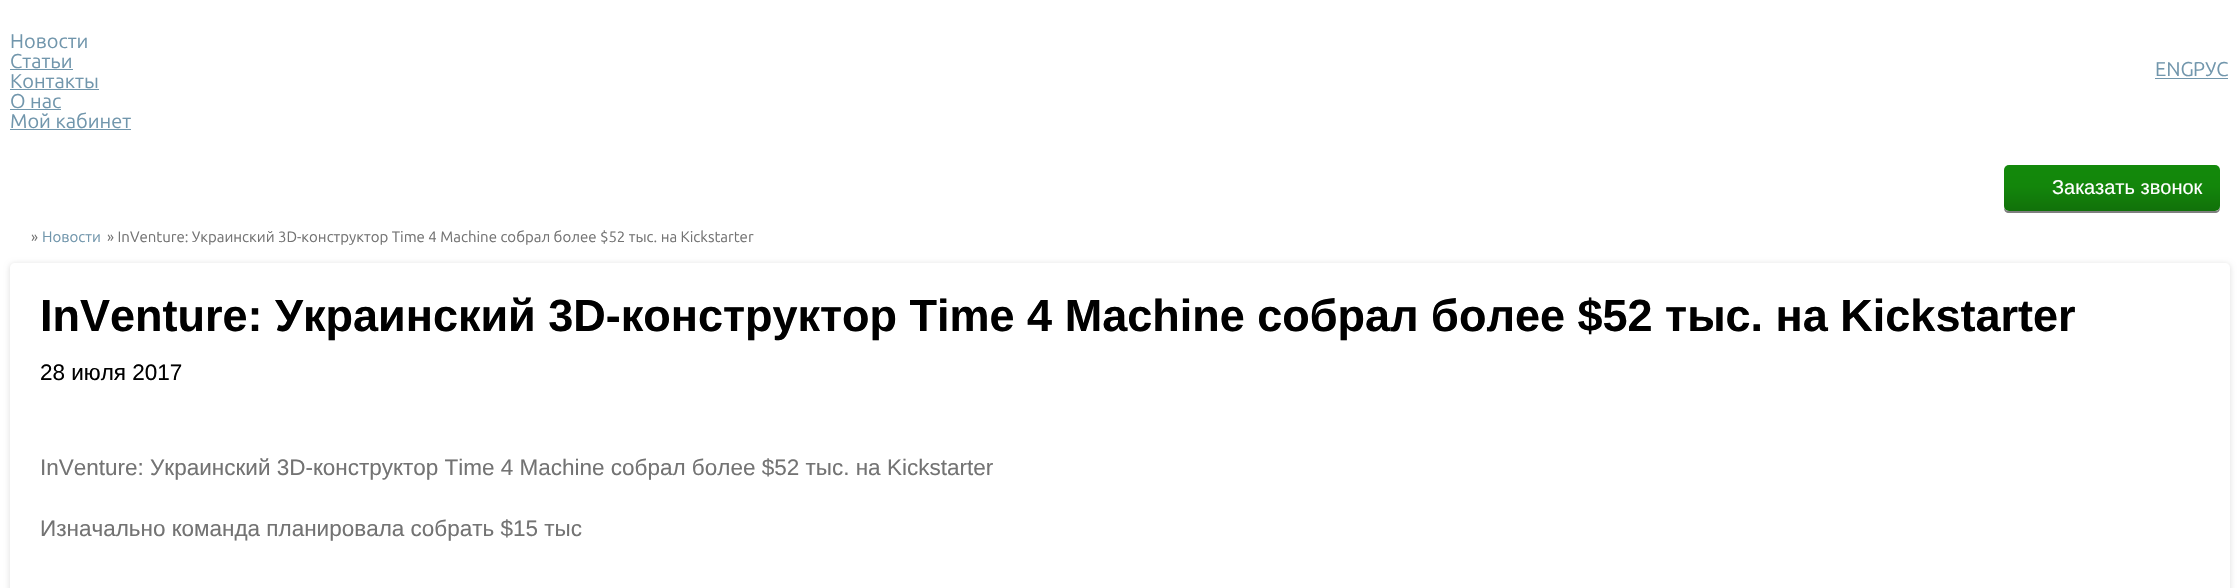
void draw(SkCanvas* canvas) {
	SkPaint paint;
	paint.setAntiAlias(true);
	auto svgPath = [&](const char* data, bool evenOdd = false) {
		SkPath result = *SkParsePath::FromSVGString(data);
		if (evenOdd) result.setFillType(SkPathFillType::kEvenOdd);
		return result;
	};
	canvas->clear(0xffffffff);
	SkFont f1(fontMgr->matchFamilyStyle("Ubuntu", SkFontStyle::Normal()), 20);
	f1.setSubpixel(true);
	paint.setColor(0xff7196ac);
	canvas->drawString("Новости", 10, 48, f1, paint);
	canvas->drawString("Статьи", 10, 68, f1, paint);
	canvas->drawRect(SkRect::MakeXYWH(10, 69, 63, 1), paint);
	canvas->drawString("Контакты", 10, 88, f1, paint);
	canvas->drawRect(SkRect::MakeXYWH(10, 89, 89, 1), paint);
	canvas->drawString("О нас", 10, 108, f1, paint);
	canvas->drawRect(SkRect::MakeXYWH(10, 109, 51, 1), paint);
	canvas->drawString("Мой кабинет", 10, 128, f1, paint);
	canvas->drawRect(SkRect::MakeXYWH(10, 129, 121, 1), paint);
	canvas->drawString("ENG", 2155, 76, f1, paint);
	canvas->drawString("РУС", 2193, 76, f1, paint);
	canvas->drawRect(SkRect::MakeXYWH(2155, 78, 73, 1), paint);
	paint.setColor(0xff7f7f7f);
	canvas->drawPath(svgPath("M2004 208C2004 211 2006 213 2009 213H2215C2218 213 2220 211 2220 208V206C2220 209 2218 211 2215 211H2009C2007 211 2005 210 2004 208Z"), paint);
	{
		const SkColor colors[] = {0xff13890b, 0xff13860b, 0xff11710a};
		const float stops[] = {0, 0.46, 1};
		const SkPoint ends[] = {{2112, 165}, {2112, 211}};
		paint.setShader(SkGradientShader::MakeLinear(ends, colors, stops, 3, SkTileMode::kClamp));
		paint.setAlpha(255);
	}
	canvas->drawRoundRect(SkRect::MakeXYWH(2004, 165, 216, 46), 5, 5, paint);
	SkFont f2(fontMgr->matchFamilyStyle("Liberation Sans", SkFontStyle::Normal()), 20);
	f2.setSubpixel(true);
	paint.setShader(nullptr);
	paint.setColor(0xffffffff);
	canvas->drawString("Заказать звонок", 2052, 194, f2, paint);
	SkFont f3(fontMgr->matchFamilyStyle("Ubuntu", SkFontStyle::Normal()), 15);
	f3.setSubpixel(true);
	paint.setColor(0xff737373);
	canvas->drawString("»", 31, 242, f3, paint);
	paint.setColor(0xff7196ac);
	canvas->drawString("Новости", 42, 242, f3, paint);
	paint.setColor(0xff737373);
	canvas->drawString("» InVenture: Украинский 3D-конструктор Time 4 Machine собрал более $52 тыс. на Kickstarter", 107, 242, f3, paint);
	canvas->save();
	canvas->clipPath(svgPath("M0 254H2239V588H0ZM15 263H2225C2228 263 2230 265 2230 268V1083C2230 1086 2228 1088 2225 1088H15C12 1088 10 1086 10 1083V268C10 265 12 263 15 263Z", true), true);
	paint.setColor(0x1a000000);
	paint.setMaskFilter(SkMaskFilter::MakeBlur(kNormal_SkBlurStyle, 2.5));
	canvas->drawRoundRect(SkRect::MakeXYWH(9, 263, 2222, 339), 6, 6, paint);
	paint.setMaskFilter(nullptr);
	canvas->restore();
	SkFont f4(fontMgr->matchFamilyStyle("Liberation Sans", SkFontStyle::Bold()), 45);
	f4.setSubpixel(true);
	paint.setColor(0xff000000);
	canvas->drawString("InVenture: Украинский 3D-конструктор Time 4 Machine собрал более $52 тыс. на Kickstarter", 40, 331, f4, paint);
	SkFont f5(fontMgr->matchFamilyStyle("Liberation Sans", SkFontStyle::Normal()), 22.5);
	f5.setSubpixel(true);
	canvas->drawString("28 июля 2017", 40, 380, f5, paint);
	paint.setColor(0xff737373);
	canvas->drawString("InVenture: Украинский 3D-конструктор Time 4 Machine собрал более $52 тыс. на Kickstarter", 40, 475, f5, paint);
	canvas->drawString("Изначально команда планировала собрать $15 тыс", 40, 536, f5, paint);
}
